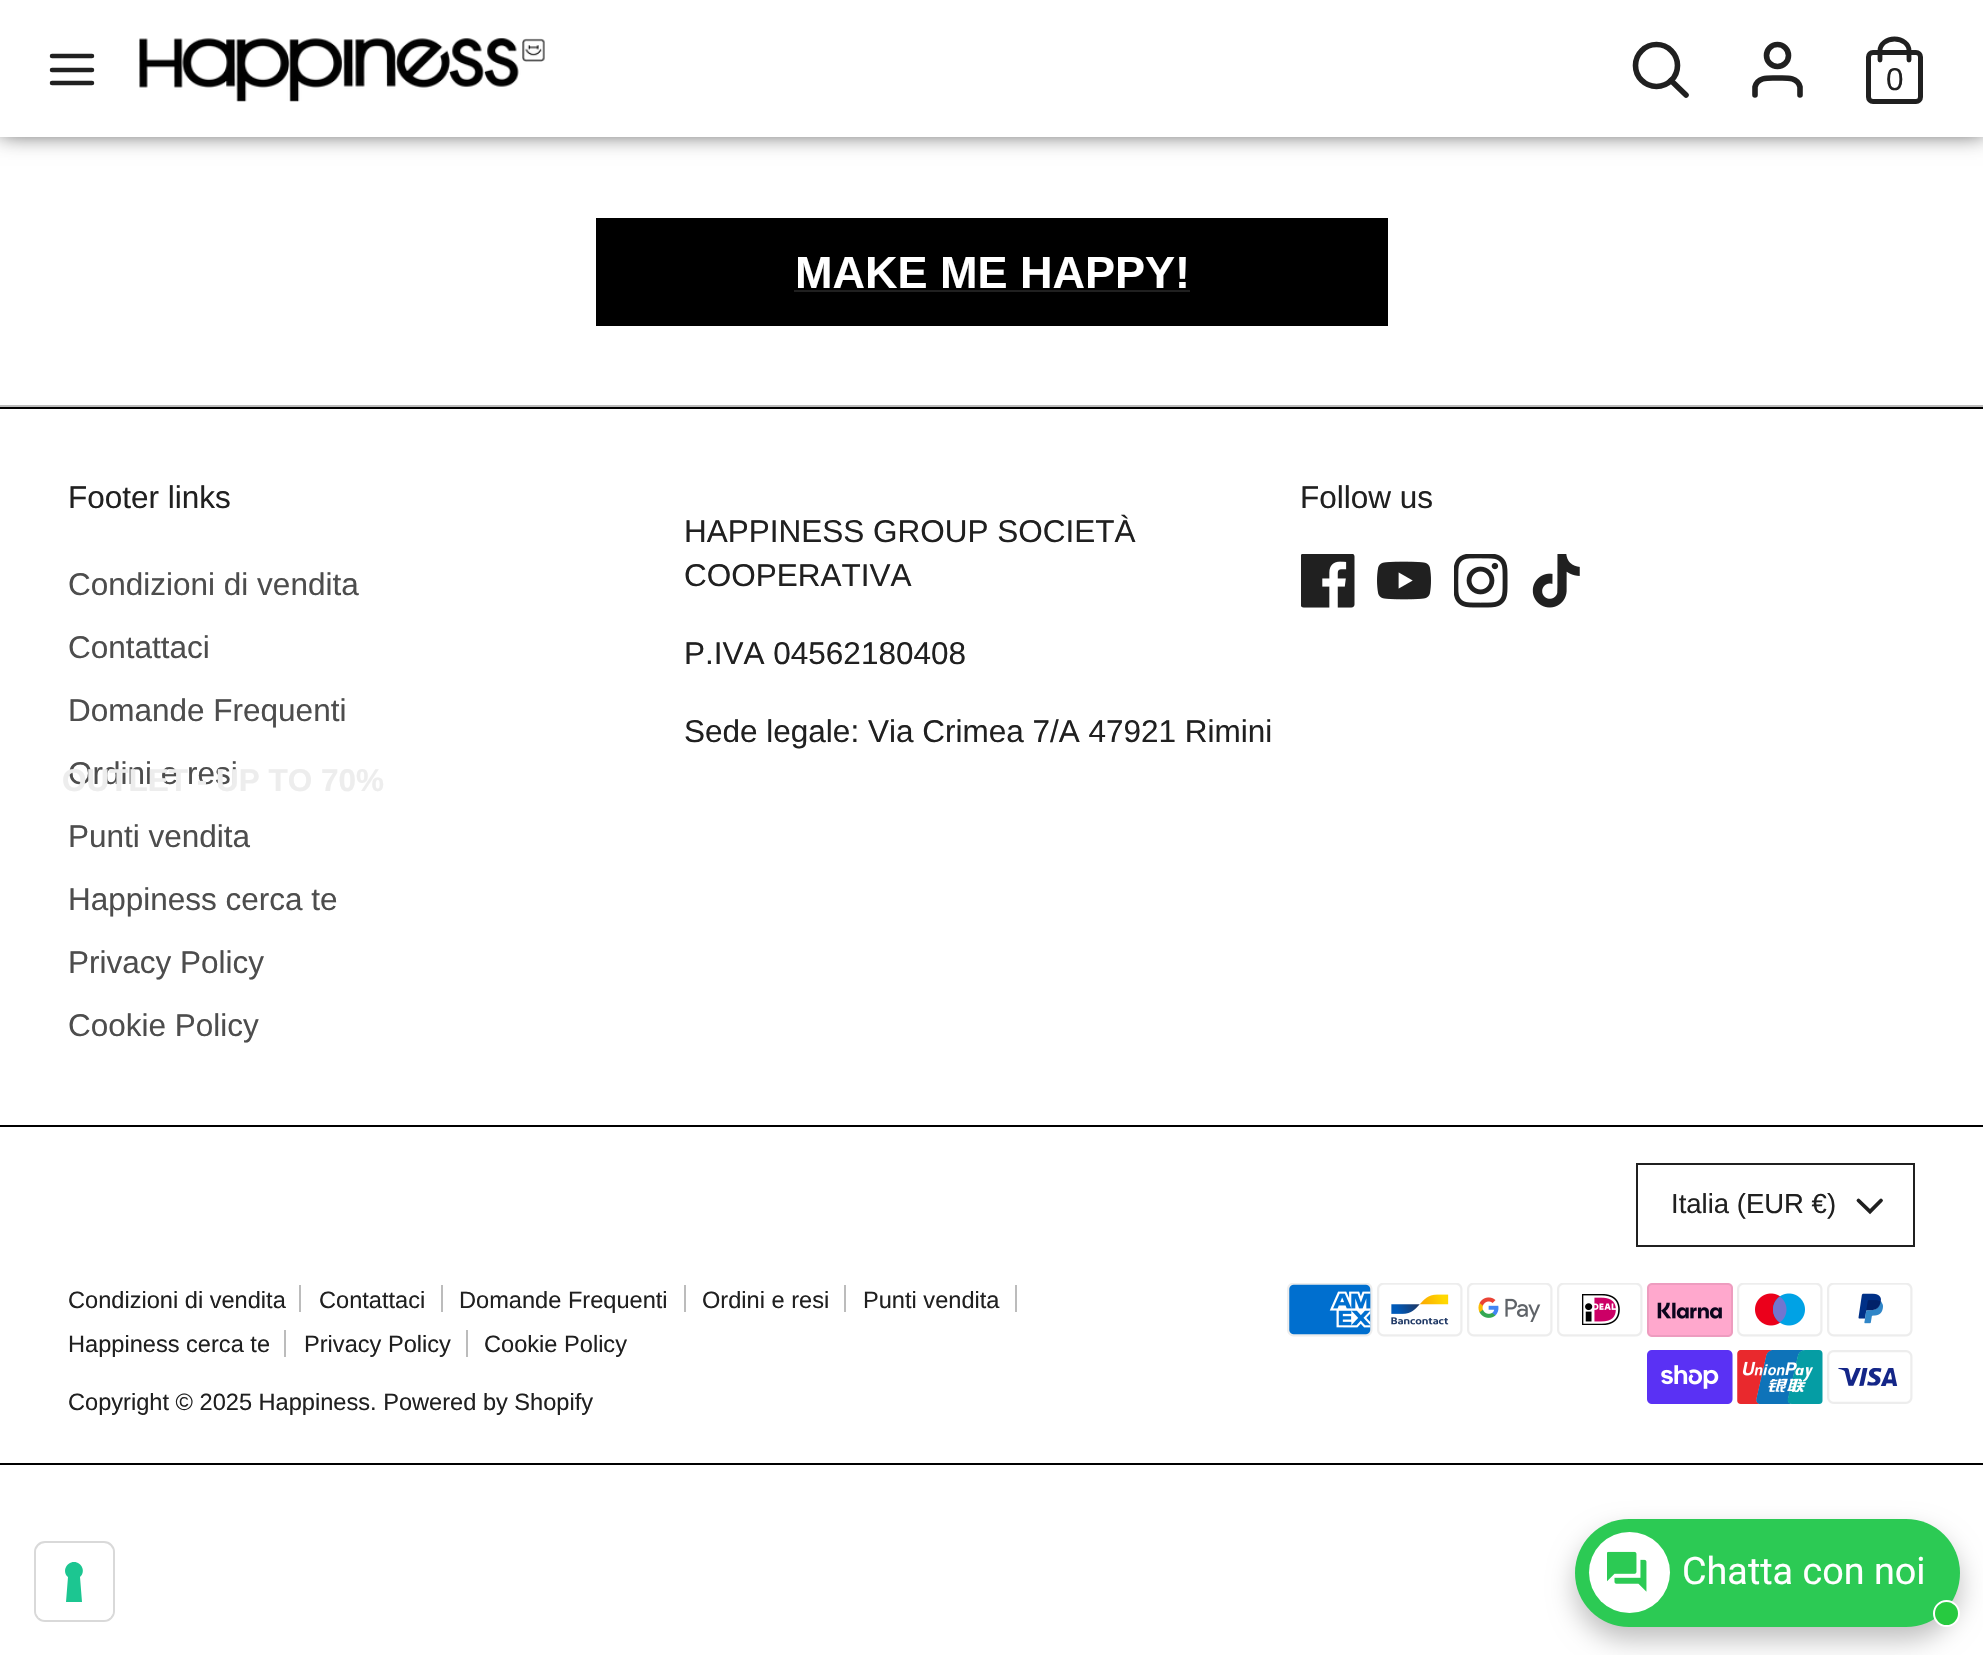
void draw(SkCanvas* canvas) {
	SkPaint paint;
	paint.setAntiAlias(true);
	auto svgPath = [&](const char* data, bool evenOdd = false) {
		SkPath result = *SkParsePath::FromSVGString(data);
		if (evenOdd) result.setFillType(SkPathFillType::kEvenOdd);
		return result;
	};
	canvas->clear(0xffffffff);
	paint.setColor(0xbf000000);
	paint.setMaskFilter(SkMaskFilter::MakeBlur(kNormal_SkBlurStyle, 11));
	canvas->drawRect(SkRect::MakeXYWH(0, -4, 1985, 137), paint);
	paint.setMaskFilter(nullptr);
	paint.setColor(0xffffffff);
	canvas->drawRect(SkRect::MakeXYWH(0, 0, 1983, 137), paint);
	paint.setStroke(true);
	paint.setStrokeWidth(4.5);
	paint.setStrokeCap(SkPaint::kRound_Cap);
	paint.setColor(0xff202020);
	canvas->drawPath(svgPath("M52 70H92M52 56H92M52 83H92"), paint);
	canvas->drawImageRect(SkImages::DeferredFromEncodedData(SkData::MakeFromFileName("img1.png")), SkRect::MakeXYWH(139, 38, 406, 64), SkSamplingOptions());
	paint.setStrokeWidth(5.6);
	paint.setStrokeCap(SkPaint::kButt_Cap);
	canvas->drawCircle(1656.5, 65.5, 21, paint);
	paint.setStrokeCap(SkPaint::kRound_Cap);
	canvas->drawPath(svgPath("M1686 95L1671 80.5"), paint);
	canvas->drawPath(svgPath("M1800 95V87C1797.5 76.5 1785.5 78 1777.5 78C1769.5 78 1757.5 76.5 1755 87V95"), paint);
	paint.setStrokeCap(SkPaint::kButt_Cap);
	canvas->drawCircle(1777.5, 55.5, 11, paint);
	paint.setStrokeWidth(5);
	canvas->drawRoundRect(SkRect::MakeXYWH(1868.5, 52.5, 52, 49), 4.5, 4.5, paint);
	paint.setStrokeWidth(4.8);
	paint.setStrokeCap(SkPaint::kRound_Cap);
	canvas->drawPath(svgPath("M1880 60V50.5C1880 44 1886.5 39 1894.5 39C1902.5 39 1909 44 1909 50.5V60"), paint);
	SkFont f1(fontMgr->matchFamilyStyle("Liberation Sans", SkFontStyle::Normal()), 31.5);
	f1.setSubpixel(true);
	paint.setStroke(false);
	canvas->drawString("0", 1886, 90, f1, paint);
	paint.setColor(0xff4d4d4d);
	canvas->drawString("Ordini e resi", 68, 784, f1, paint);
	SkFont f2(fontMgr->matchFamilyStyle("Liberation Sans", SkFontStyle::Bold()), 31.5);
	f2.setSubpixel(true);
	paint.setColor(0xffededed);
	canvas->drawString("OUTLET - UP TO 70%", 62, 791, f2, paint);
	paint.setColor(0xffbcbcbc);
	canvas->drawRect(SkRect::MakeXYWH(0, 405, 1983, 2), paint);
	paint.setColor(0xff000000);
	canvas->drawRect(SkRect::MakeXYWH(596, 218, 792, 108), paint);
	SkFont f3(fontMgr->matchFamilyStyle("Liberation Sans", SkFontStyle::Bold()), 45);
	f3.setSubpixel(true);
	paint.setColor(0xffffffff);
	canvas->drawString("MAKE ME HAPPY!", 795, 288, f3, paint);
	paint.setColor(0xff202020);
	canvas->drawRect(SkRect::MakeXYWH(794, 290, 396, 2), paint);
	paint.setColor(0xff000000);
	canvas->drawRect(SkRect::MakeXYWH(0, 407, 1983, 2), paint);
	paint.setColor(0xff202020);
	canvas->drawString("Footer links", 68, 508, f1, paint);
	paint.setColor(0xff4d4d4d);
	canvas->drawString("Condizioni di vendita", 68, 595, f1, paint);
	canvas->drawString("Contattaci", 68, 658, f1, paint);
	canvas->drawString("Domande Frequenti", 68, 721, f1, paint);
	canvas->drawString("Punti vendita", 68, 847, f1, paint);
	canvas->drawString("Happiness cerca te", 68, 910, f1, paint);
	canvas->drawString("Privacy Policy", 68, 973, f1, paint);
	canvas->drawString("Cookie Policy", 68, 1036, f1, paint);
	paint.setColor(0xff202020);
	canvas->drawString("Follow us", 1300, 508, f1, paint);
	canvas->drawImageRect(SkImages::DeferredFromEncodedData(SkData::MakeFromFileName("img2.png")), SkRect::MakeXYWH(1301, 554, 54, 54), SkSamplingOptions());
	canvas->drawImageRect(SkImages::DeferredFromEncodedData(SkData::MakeFromFileName("img3.png")), SkRect::MakeXYWH(1377, 561, 54, 39), SkSamplingOptions());
	canvas->drawImageRect(SkImages::DeferredFromEncodedData(SkData::MakeFromFileName("img4.png")), SkRect::MakeXYWH(1454, 554, 54, 54), SkSamplingOptions());
	canvas->drawImageRect(SkImages::DeferredFromEncodedData(SkData::MakeFromFileName("img5.png")), SkRect::MakeXYWH(1532, 554, 48, 54), SkSamplingOptions());
	canvas->drawString("HAPPINESS GROUP SOCIETÀ", 684, 542, f1, paint);
	canvas->drawString("COOPERATIVA", 684, 586, f1, paint);
	canvas->drawString("P.IVA 04562180408", 684, 664, f1, paint);
	canvas->drawString("Sede legale: Via Crimea 7/A 47921 Rimini", 684, 742, f1, paint);
	paint.setColor(0xff000000);
	canvas->drawRect(SkRect::MakeXYWH(0, 1125, 1983, 2), paint);
	canvas->drawRect(SkRect::MakeXYWH(0, 1463, 1983, 2), paint);
	paint.setStroke(true);
	paint.setStrokeWidth(2);
	paint.setStrokeCap(SkPaint::kButt_Cap);
	paint.setColor(0xff202020);
	canvas->drawRect(SkRect::MakeXYWH(1637, 1164, 277, 82), paint);
	SkFont f4(fontMgr->matchFamilyStyle("Liberation Sans", SkFontStyle::Normal()), 27.5);
	f4.setSubpixel(true);
	paint.setStroke(false);
	canvas->drawString("Italia (EUR €)", 1671, 1213, f4, paint);
	paint.setStroke(true);
	paint.setStrokeWidth(3.8);
	paint.setStrokeCap(SkPaint::kRound_Cap);
	canvas->drawPath(svgPath("M1858.5 1200.5L1870 1211.5L1881 1200.5"), paint);
	canvas->drawImageRect(SkImages::DeferredFromEncodedData(SkData::MakeFromFileName("img6.png")), SkRect::MakeXYWH(1287, 1283, 86, 54), SkSamplingOptions());
	canvas->drawImageRect(SkImages::DeferredFromEncodedData(SkData::MakeFromFileName("img7.png")), SkRect::MakeXYWH(1377, 1283, 86, 54), SkSamplingOptions());
	canvas->drawImageRect(SkImages::DeferredFromEncodedData(SkData::MakeFromFileName("img8.png")), SkRect::MakeXYWH(1467, 1283, 86, 54), SkSamplingOptions());
	canvas->drawImageRect(SkImages::DeferredFromEncodedData(SkData::MakeFromFileName("img9.png")), SkRect::MakeXYWH(1557, 1283, 86, 54), SkSamplingOptions());
	canvas->drawImageRect(SkImages::DeferredFromEncodedData(SkData::MakeFromFileName("img10.png")), SkRect::MakeXYWH(1647, 1283, 86, 54), SkSamplingOptions());
	canvas->drawImageRect(SkImages::DeferredFromEncodedData(SkData::MakeFromFileName("img11.png")), SkRect::MakeXYWH(1737, 1283, 86, 54), SkSamplingOptions());
	canvas->drawImageRect(SkImages::DeferredFromEncodedData(SkData::MakeFromFileName("img12.png")), SkRect::MakeXYWH(1827, 1283, 86, 54), SkSamplingOptions());
	canvas->drawImageRect(SkImages::DeferredFromEncodedData(SkData::MakeFromFileName("img13.png")), SkRect::MakeXYWH(1647, 1350, 86, 54), SkSamplingOptions());
	canvas->drawImageRect(SkImages::DeferredFromEncodedData(SkData::MakeFromFileName("img14.png")), SkRect::MakeXYWH(1737, 1350, 86, 54), SkSamplingOptions());
	canvas->drawImageRect(SkImages::DeferredFromEncodedData(SkData::MakeFromFileName("img15.png")), SkRect::MakeXYWH(1827, 1350, 86, 54), SkSamplingOptions());
	SkFont f5(fontMgr->matchFamilyStyle("Liberation Sans", SkFontStyle::Normal()), 23.6);
	f5.setSubpixel(true);
	paint.setStroke(false);
	canvas->drawString("Condizioni di vendita", 68, 1308, f5, paint);
	paint.setColor(0xffbcbcbc);
	canvas->drawRect(SkRect::MakeXYWH(299, 1285, 2, 27), paint);
	paint.setColor(0xff202020);
	canvas->drawString("Contattaci", 319, 1308, f5, paint);
	paint.setColor(0xffbcbcbc);
	canvas->drawRect(SkRect::MakeXYWH(441, 1285, 2, 27), paint);
	paint.setColor(0xff202020);
	canvas->drawString("Domande Frequenti", 459, 1308, f5, paint);
	paint.setColor(0xffbcbcbc);
	canvas->drawRect(SkRect::MakeXYWH(684, 1285, 2, 27), paint);
	paint.setColor(0xff202020);
	canvas->drawString("Ordini e resi", 702, 1308, f5, paint);
	paint.setColor(0xffbcbcbc);
	canvas->drawRect(SkRect::MakeXYWH(844, 1285, 2, 27), paint);
	paint.setColor(0xff202020);
	canvas->drawString("Punti vendita", 863, 1308, f5, paint);
	paint.setColor(0xffbcbcbc);
	canvas->drawRect(SkRect::MakeXYWH(1015, 1285, 2, 27), paint);
	paint.setColor(0xff202020);
	canvas->drawString("Happiness cerca te", 68, 1352, f5, paint);
	paint.setColor(0xffbcbcbc);
	canvas->drawRect(SkRect::MakeXYWH(284, 1330, 2, 27), paint);
	paint.setColor(0xff202020);
	canvas->drawString("Privacy Policy", 304, 1352, f5, paint);
	paint.setColor(0xffbcbcbc);
	canvas->drawRect(SkRect::MakeXYWH(466, 1330, 2, 27), paint);
	paint.setColor(0xff202020);
	canvas->drawString("Cookie Policy", 484, 1352, f5, paint);
	canvas->drawString("Copyright © 2025 Happiness. Powered by Shopify", 68, 1410, f5, paint);
	paint.setStroke(true);
	paint.setStrokeWidth(2);
	paint.setStrokeCap(SkPaint::kButt_Cap);
	paint.setColor(0xffd9d9d9);
	canvas->drawRoundRect(SkRect::MakeXYWH(35, 1542, 79, 79), 10, 10, paint);
	paint.setStroke(false);
	paint.setColor(0xffffffff);
	canvas->drawRoundRect(SkRect::MakeXYWH(36, 1544, 77, 76), 9, 9, paint);
	paint.setColor(0xff1cc691);
	canvas->drawPath(svgPath("M74 1562C82 1562 86 1572 80 1577L82 1602H66L68 1577C62 1572 66 1562 74 1562Z", true), paint);
	paint.setColor(0x40000000);
	paint.setMaskFilter(SkMaskFilter::MakeBlur(kNormal_SkBlurStyle, 13.5));
	canvas->drawRoundRect(SkRect::MakeXYWH(1575, 1532, 385, 108), 54, 54, paint);
	paint.setMaskFilter(nullptr);
	paint.setColor(0xff2cca54);
	canvas->drawRoundRect(SkRect::MakeXYWH(1575, 1519, 385, 108), 54, 54, paint);
	paint.setColor(0xffffffff);
	canvas->drawCircle(1629.5, 1572.5, 40.5, paint);
	canvas->drawImageRect(SkImages::DeferredFromEncodedData(SkData::MakeFromFileName("img16.png")), SkRect::MakeXYWH(1607, 1551, 40, 41), SkSamplingOptions());
	SkFont f6(fontMgr->matchFamilyStyle("Roboto", SkFontStyle::Normal()), 37.75);
	f6.setSubpixel(true);
	canvas->drawString("Chatta con noi", 1682, 1584, f6, paint);
	paint.setColor(0xff27ca40);
	canvas->drawCircle(1946.5, 1613.5, 12.5, paint);
	paint.setStroke(true);
	paint.setColor(0xffffffff);
	canvas->drawCircle(1946.5, 1613.5, 12.5, paint);
}
